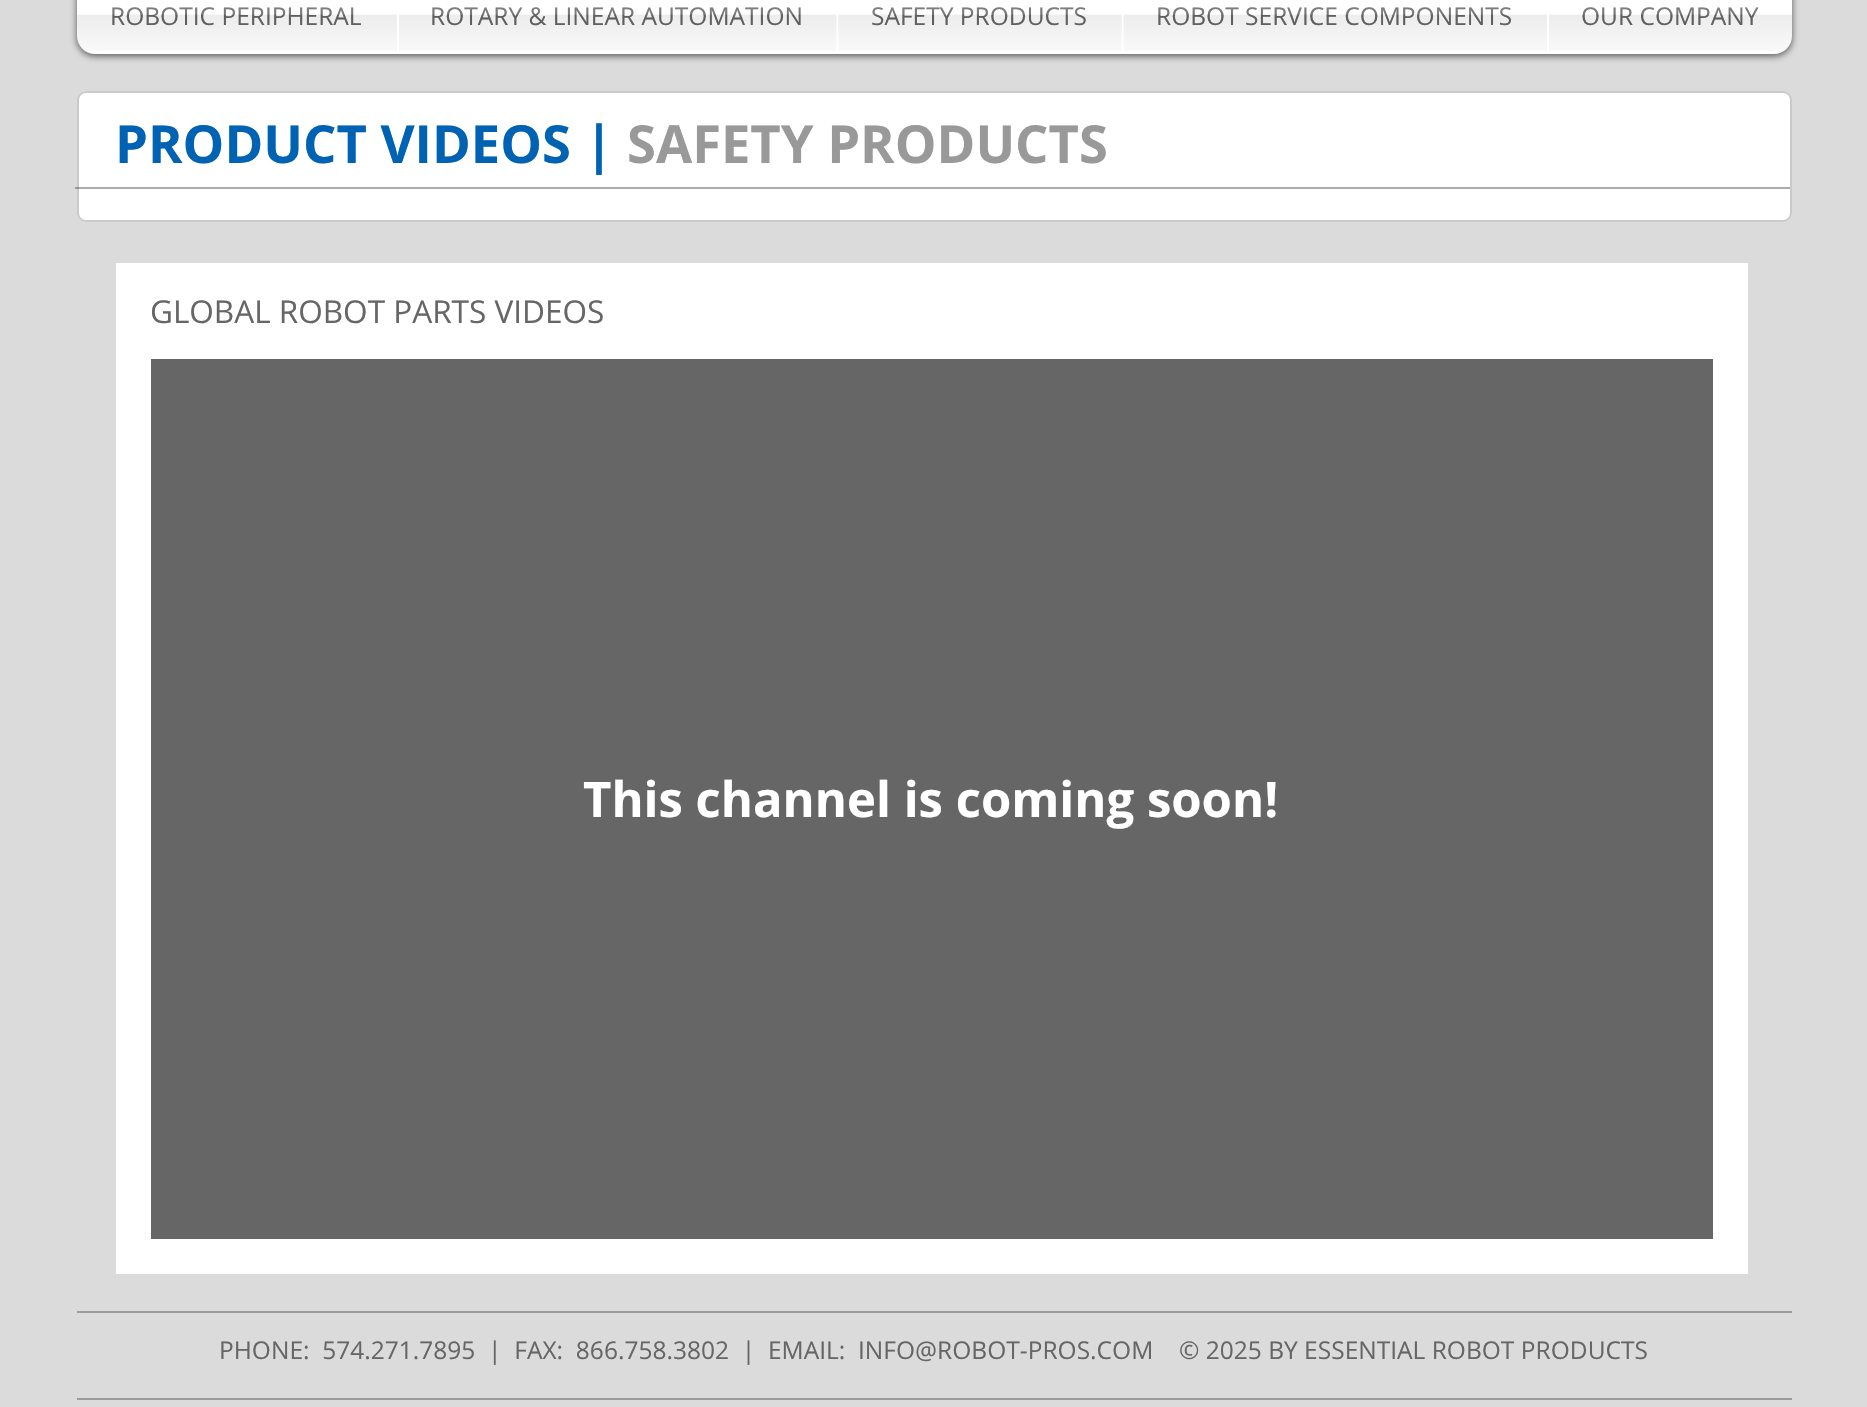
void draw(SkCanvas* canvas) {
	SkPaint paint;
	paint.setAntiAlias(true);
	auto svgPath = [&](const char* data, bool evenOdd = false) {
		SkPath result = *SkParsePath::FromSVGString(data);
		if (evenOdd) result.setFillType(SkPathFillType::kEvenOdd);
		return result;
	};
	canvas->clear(0xffdbdbdb);
	paint.setColor(0x99000000);
	paint.setMaskFilter(SkMaskFilter::MakeBlur(kNormal_SkBlurStyle, 3.5));
	canvas->drawRoundRect(SkRect::MakeXYWH(77, -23, 1715, 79), 18, 18, paint);
	paint.setMaskFilter(nullptr);
	canvas->drawImageRect(SkImages::DeferredFromEncodedData(SkData::MakeFromFileName("img1.png")), SkRect::MakeXYWH(77, 36, 1715, 13), SkSamplingOptions());
	paint.setColor(0xffffffff);
	canvas->drawPath(svgPath("M95-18H397V54H95C85 54 77 46 77 36V0C77-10 85-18 95-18Z"), paint);
	SkFont f1(fontMgr->matchFamilyStyle("Open Sans", SkFontStyle::Normal()), 24.5);
	f1.setSubpixel(true);
	paint.setColor(0xff666666);
	canvas->drawString("ROBOTIC PERIPHERAL", 110, 25, f1, paint);
	canvas->drawImageRect(SkImages::DeferredFromEncodedData(SkData::MakeFromFileName("img2.png")), SkRect::MakeXYWH(77, 7, 320, 44), SkSamplingOptions());
	paint.setColor(0xffffffff);
	canvas->drawRect(SkRect::MakeXYWH(397, 0, 1150, 54), paint);
	paint.setColor(0xff666666);
	canvas->drawString("ROTARY & LINEAR AUTOMATION", 430, 25, f1, paint);
	canvas->drawImageRect(SkImages::DeferredFromEncodedData(SkData::MakeFromFileName("img3.png")), SkRect::MakeXYWH(399, 7, 438, 44), SkSamplingOptions());
	canvas->drawString("SAFETY PRODUCTS", 871, 25, f1, paint);
	canvas->drawImageRect(SkImages::DeferredFromEncodedData(SkData::MakeFromFileName("img4.png")), SkRect::MakeXYWH(838, 7, 284, 44), SkSamplingOptions());
	canvas->drawString("ROBOT SERVICE COMPONENTS", 1156, 25, f1, paint);
	canvas->drawImageRect(SkImages::DeferredFromEncodedData(SkData::MakeFromFileName("img5.png")), SkRect::MakeXYWH(1123, 7, 424, 44), SkSamplingOptions());
	paint.setColor(0xffffffff);
	canvas->drawPath(svgPath("M1547-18H1774C1784-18 1792-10 1792 0V36C1792 46 1784 54 1774 54H1547Z"), paint);
	paint.setColor(0xff666666);
	canvas->drawString("OUR COMPANY", 1581, 25, f1, paint);
	canvas->drawImageRect(SkImages::DeferredFromEncodedData(SkData::MakeFromFileName("img6.png")), SkRect::MakeXYWH(1549, 7, 243, 44), SkSamplingOptions());
	paint.setColor(0xffffffff);
	canvas->drawRoundRect(SkRect::MakeXYWH(77, 91, 1715, 131), 9, 9, paint);
	paint.setStroke(true);
	paint.setStrokeWidth(2);
	paint.setColor(0x59666666);
	canvas->drawRoundRect(SkRect::MakeXYWH(78, 92, 1713, 129), 8, 8, paint);
	SkFont f2(fontMgr->matchFamilyStyle("Open Sans", SkFontStyle::Bold()), 52.5);
	f2.setSubpixel(true);
	paint.setStroke(false);
	paint.setColor(0xff0062b3);
	canvas->drawString("PRODUCT VIDEOS |", 115, 163, f2, paint);
	paint.setColor(0xff999999);
	canvas->drawString("SAFETY PRODUCTS", 627, 163, f2, paint);
	paint.setColor(0x8c666666);
	canvas->drawRect(SkRect::MakeXYWH(75, 187, 1715, 2), paint);
	paint.setColor(0xffffffff);
	canvas->drawRect(SkRect::MakeXYWH(116, 263, 1632, 1011), paint);
	SkFont f3(fontMgr->matchFamilyStyle("Open Sans", SkFontStyle::Normal()), 31.5);
	f3.setSubpixel(true);
	paint.setColor(0xff666666);
	canvas->drawString("GLOBAL ROBOT PARTS VIDEOS", 150, 323, f3, paint);
	canvas->drawRect(SkRect::MakeXYWH(151, 359, 1562, 880), paint);
	SkFont f4(fontMgr->matchFamilyStyle("Open Sans", SkFontStyle::Bold()), 49);
	f4.setSubpixel(true);
	paint.setColor(0xffffffff);
	canvas->drawString("This channel is coming soon!", 583, 817, f4, paint);
	paint.setColor(0xff9b9b9b);
	canvas->drawRect(SkRect::MakeXYWH(77, 1311, 1715, 2), paint);
	paint.setColor(0xff666666);
	canvas->drawString("PHONE:  574.271.7895  |  FAX:  866.758.3802  |  EMAIL:", 219, 1359, f1, paint);
	canvas->drawString("INFO@ROBOT-PROS.COM", 858, 1359, f1, paint);
	canvas->drawString("© 2025 BY ESSENTIAL ROBOT PRODUCTS", 1179, 1359, f1, paint);
	paint.setColor(0xff9b9b9b);
	canvas->drawRect(SkRect::MakeXYWH(77, 1398, 1715, 2), paint);
}
